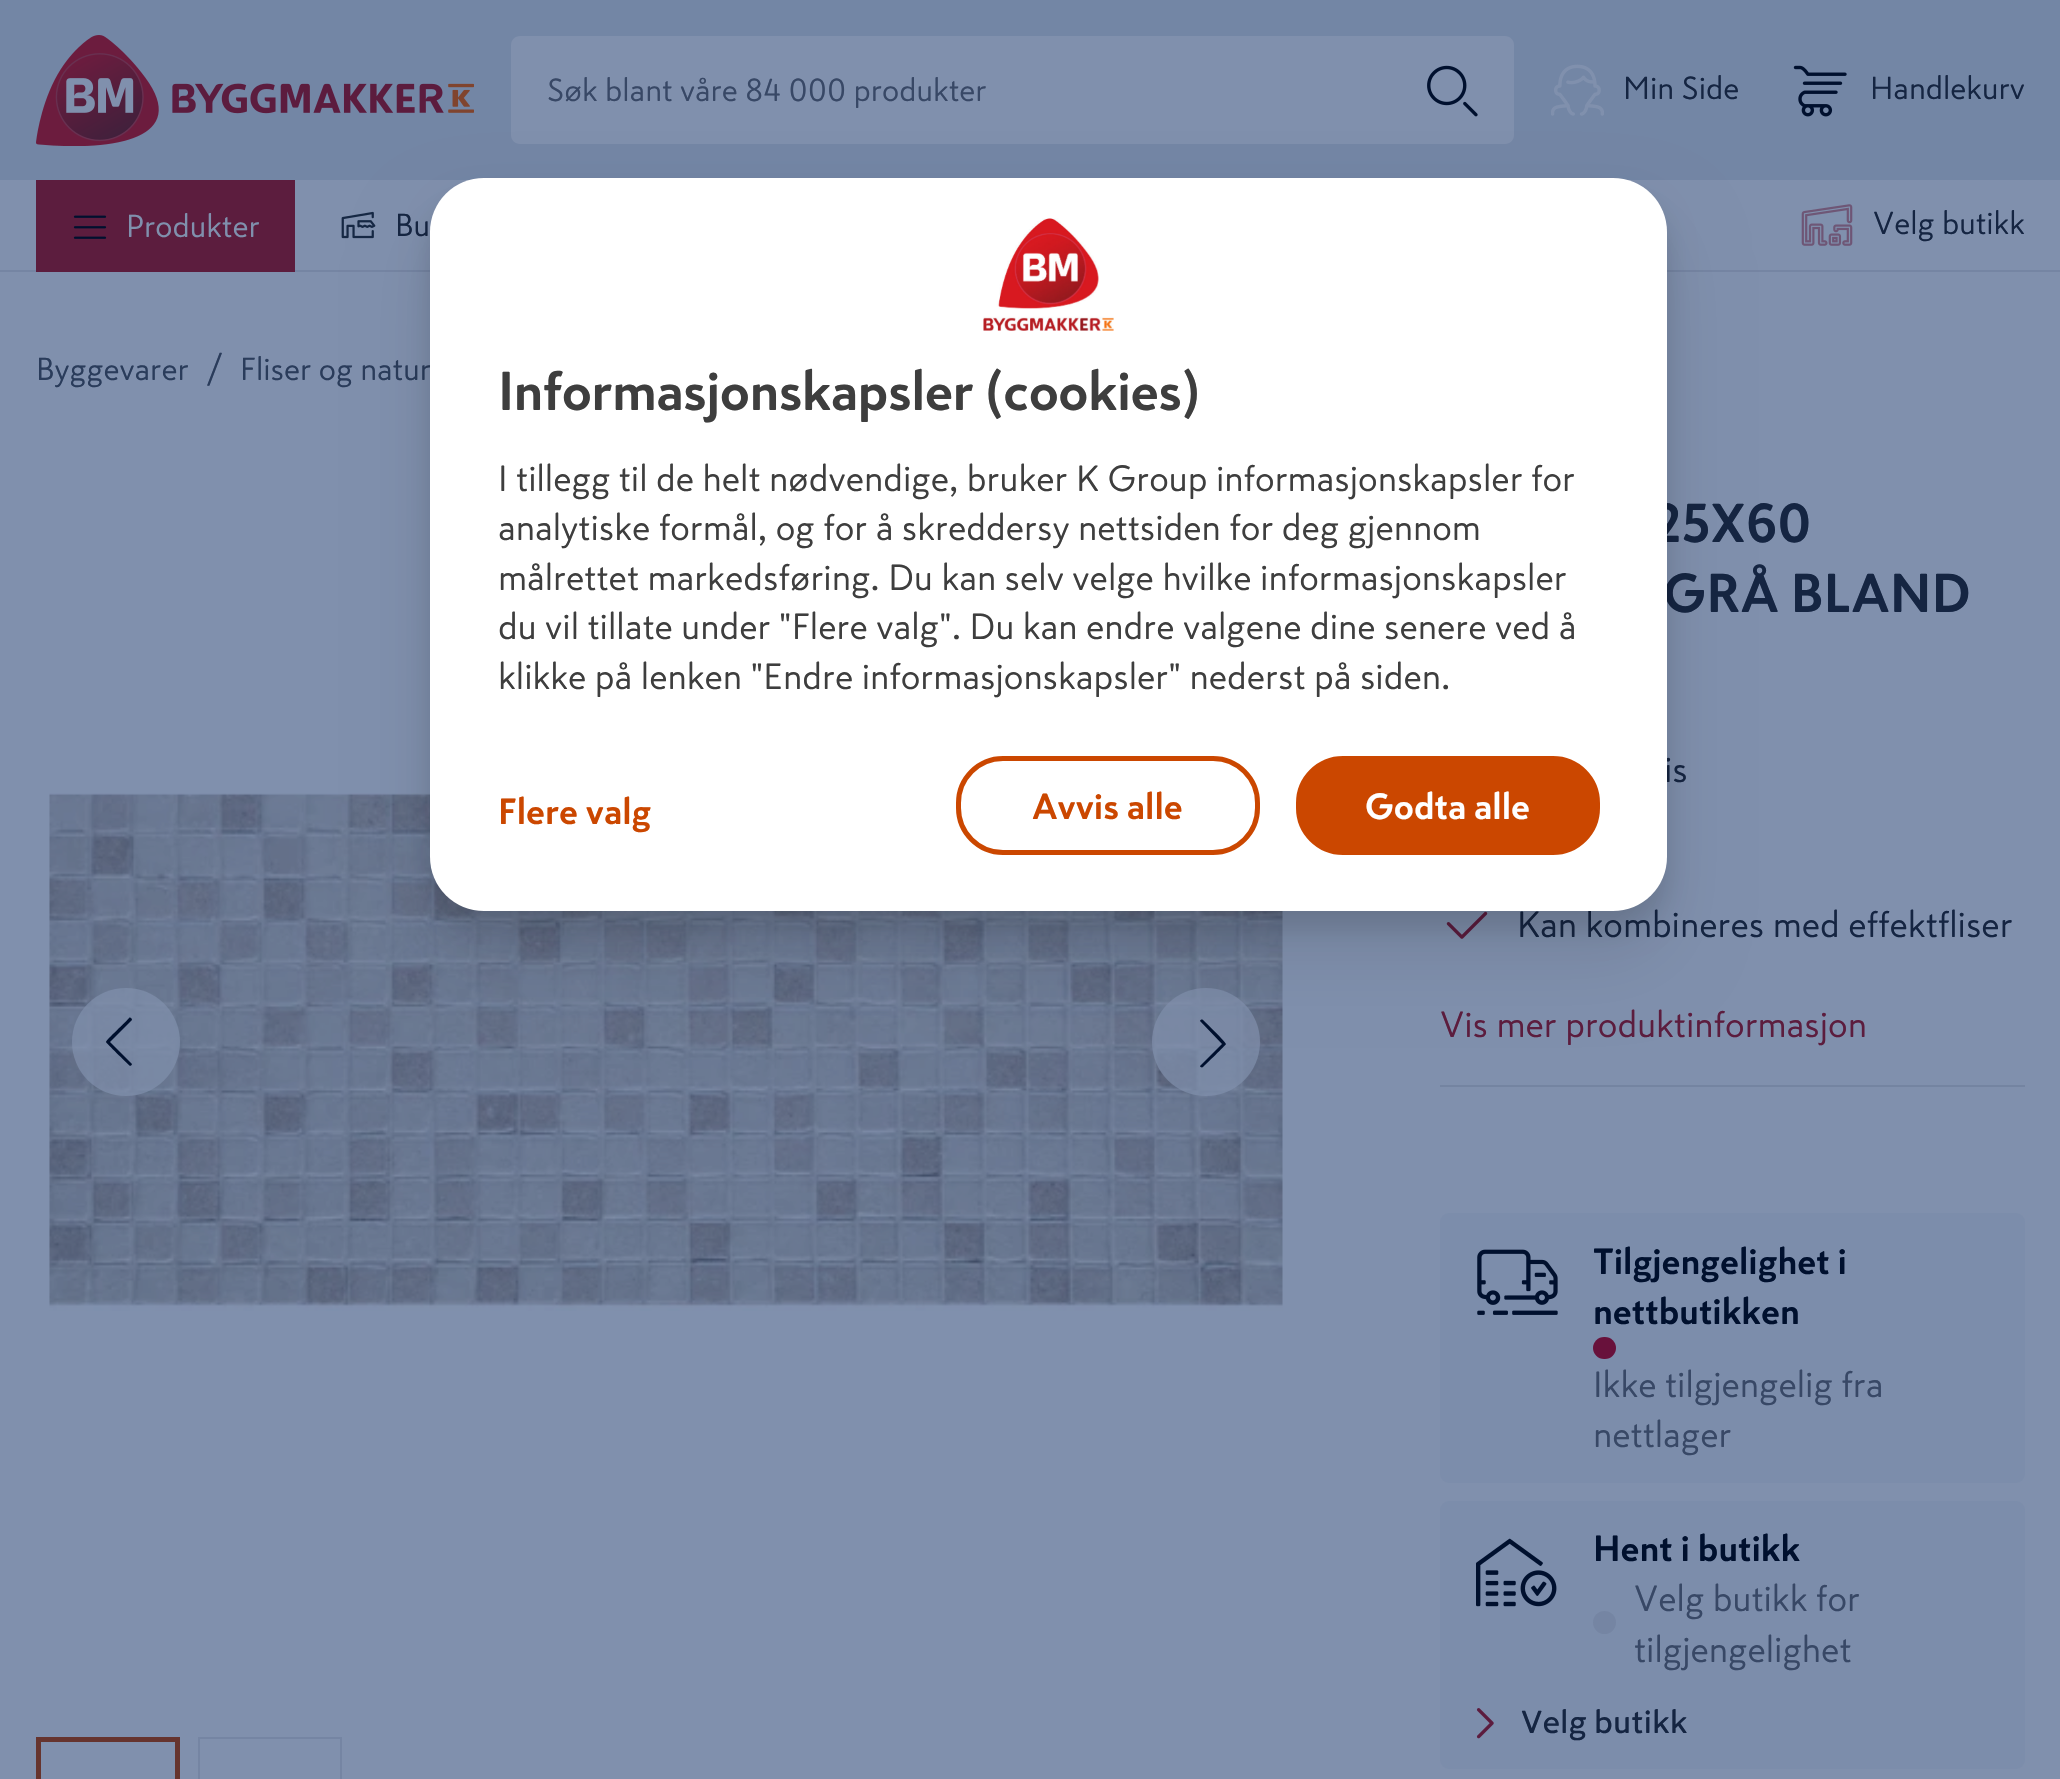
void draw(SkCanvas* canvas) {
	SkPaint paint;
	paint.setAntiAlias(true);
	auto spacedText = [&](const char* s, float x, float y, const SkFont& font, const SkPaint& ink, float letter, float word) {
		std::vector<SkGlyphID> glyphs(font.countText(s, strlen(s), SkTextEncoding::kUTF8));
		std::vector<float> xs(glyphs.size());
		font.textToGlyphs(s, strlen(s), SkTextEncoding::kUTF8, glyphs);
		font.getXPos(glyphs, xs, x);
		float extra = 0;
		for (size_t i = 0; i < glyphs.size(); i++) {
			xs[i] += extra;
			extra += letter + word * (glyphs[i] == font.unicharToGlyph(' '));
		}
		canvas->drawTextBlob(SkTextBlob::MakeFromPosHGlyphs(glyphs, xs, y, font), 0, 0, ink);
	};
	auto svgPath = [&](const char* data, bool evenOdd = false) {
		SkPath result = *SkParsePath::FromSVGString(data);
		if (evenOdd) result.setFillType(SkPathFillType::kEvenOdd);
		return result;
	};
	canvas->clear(0xff8090ad);
	paint.setColor(0xff7386a5);
	canvas->drawRect(SkRect::MakeXYWH(0, 0, 2060, 180), paint);
	canvas->drawImageRect(SkImages::DeferredFromEncodedData(SkData::MakeFromFileName("img1.png")), SkRect::MakeXYWH(36, 35, 438, 111), SkSamplingOptions());
	paint.setColor(0xff8090ad);
	canvas->drawPath(svgPath("M520 36H1388V144H520C515 144 511 140 511 135V45C511 40 515 36 520 36Z"), paint);
	SkFont f1(fontMgr->matchFamilyStyle("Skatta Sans", SkFontStyle::Normal()), 31.5);
	f1.setSubpixel(true);
	paint.setColor(0xff384866);
	canvas->drawString("Søk blant våre 84 000 produkter", 547, 101, f1, paint);
	paint.setColor(0xff8090ad);
	canvas->drawPath(svgPath("M1388 36H1505C1510 36 1514 40 1514 45V135C1514 140 1510 144 1505 144H1388Z"), paint);
	canvas->drawImageRect(SkImages::DeferredFromEncodedData(SkData::MakeFromFileName("img2.png")), SkRect::MakeXYWH(1427, 65, 51, 52), SkSamplingOptions());
	canvas->drawImageRect(SkImages::DeferredFromEncodedData(SkData::MakeFromFileName("img3.png")), SkRect::MakeXYWH(1551, 64, 53, 52), SkSamplingOptions());
	paint.setColor(0xff152542);
	canvas->drawString("Min Side", 1623, 99, f1, paint);
	canvas->drawImageRect(SkImages::DeferredFromEncodedData(SkData::MakeFromFileName("img4.png")), SkRect::MakeXYWH(1793, 65, 54, 52), SkSamplingOptions());
	canvas->drawString("Handlekurv", 1870, 99, f1, paint);
	paint.setColor(0xff7585a3);
	canvas->drawRect(SkRect::MakeXYWH(0, 270, 2060, 2), paint);
	paint.setColor(0xff5c1d3e);
	canvas->drawRect(SkRect::MakeXYWH(36, 180, 259, 92), paint);
	canvas->drawImageRect(SkImages::DeferredFromEncodedData(SkData::MakeFromFileName("img5.png")), SkRect::MakeXYWH(73, 215, 34, 24), SkSamplingOptions());
	paint.setColor(0xff8090ad);
	canvas->drawString("Produkter", 126, 237, f1, paint);
	canvas->drawImageRect(SkImages::DeferredFromEncodedData(SkData::MakeFromFileName("img6.png")), SkRect::MakeXYWH(341, 211, 35, 28), SkSamplingOptions());
	paint.setColor(0xff152542);
	canvas->drawString("Bu", 395, 236, f1, paint);
	canvas->drawImageRect(SkImages::DeferredFromEncodedData(SkData::MakeFromFileName("img7.png")), SkRect::MakeXYWH(1801, 204, 52, 42), SkSamplingOptions());
	canvas->drawString("Velg butikk", 1873, 234, f1, paint);
	paint.setColor(0xff2a3c5b);
	canvas->drawString("Byggevarer", 36, 380, f1, paint);
	SkFont f2(fontMgr->matchFamilyStyle("Skatta Sans", SkFontStyle::Normal()), 36);
	f2.setSubpixel(true);
	canvas->drawString("/", 207, 380, f2, paint);
	canvas->drawString("Fliser og natur", 240, 380, f1, paint);
	canvas->drawImageRect(SkImages::DeferredFromEncodedData(SkData::MakeFromFileName("img8.png")), SkRect::MakeXYWH(49, 793, 1234, 518), SkSamplingOptions());
	paint.setColor(0xb38090ad);
	canvas->drawCircle(126, 1042, 54, paint);
	paint.setColor(0xff00102e);
	canvas->drawPath(svgPath("M110 1042L132 1064C132 1065 130 1067 129 1065C127 1063 106 1043 106 1042C106 1040 127 1021 129 1018C130 1017 132 1018 132 1020Z"), paint);
	paint.setColor(0xb38090ad);
	canvas->drawCircle(1206, 1042, 54, paint);
	paint.setColor(0xff00102e);
	canvas->drawPath(svgPath("M1222 1044L1200 1021C1200 1020 1202 1019 1203 1020C1205 1022 1226 1042 1226 1044C1226 1045 1205 1065 1203 1067C1202 1068 1200 1067 1200 1066Z"), paint);
	paint.setStroke(true);
	paint.setStrokeWidth(5);
	paint.setColor(0xff66342e);
	canvas->drawRect(SkRect::MakeXYWH(38.5, 1739.5, 139, 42), paint);
	paint.setStrokeWidth(2);
	paint.setColor(0xff7585a3);
	canvas->drawRect(SkRect::MakeXYWH(199, 1738, 142, 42), paint);
	SkFont f3(fontMgr->matchFamilyStyle("Skatta Sans", SkFontStyle::Bold()), 54);
	f3.setSubpixel(true);
	paint.setStroke(false);
	paint.setColor(0xff152542);
	canvas->drawString("25X60", 1653, 542, f3, paint);
	canvas->drawString("GRÅ BLAND", 1663, 612, f3, paint);
	canvas->drawString("is", 1664, 782, f2, paint);
	canvas->drawImageRect(SkImages::DeferredFromEncodedData(SkData::MakeFromFileName("img9.png")), SkRect::MakeXYWH(1446, 911, 42, 28), SkSamplingOptions());
	canvas->drawString("Kan kombineres med effektfliser", 1517, 937, f2, paint);
	paint.setColor(0xff5c1d3e);
	canvas->drawString("Vis mer produktinformasjon", 1440, 1037, f2, paint);
	paint.setColor(0xff7484a1);
	canvas->drawRect(SkRect::MakeXYWH(1440, 1085, 585, 2), paint);
	paint.setColor(0xff7c8dab);
	canvas->drawRoundRect(SkRect::MakeXYWH(1440, 1213, 585, 270), 9, 9, paint);
	canvas->drawImageRect(SkImages::DeferredFromEncodedData(SkData::MakeFromFileName("img10.png")), SkRect::MakeXYWH(1477, 1249, 81, 66), SkSamplingOptions());
	SkFont f4(fontMgr->matchFamilyStyle("Skatta Sans", SkFontStyle::Bold()), 36);
	f4.setSubpixel(true);
	paint.setColor(0xff00102e);
	canvas->drawString("Tilgjengelighet i", 1593, 1274, f4, paint);
	canvas->drawString("nettbutikken", 1593, 1324, f4, paint);
	paint.setColor(0xff68113b);
	canvas->drawRoundRect(SkRect::MakeXYWH(1593, 1337, 23, 22), 11, 11, paint);
	paint.setColor(0xff384866);
	canvas->drawString("Ikke tilgjengelig fra", 1593, 1397, f2, paint);
	canvas->drawString("nettlager", 1593, 1447, f2, paint);
	paint.setColor(0xff7c8dab);
	canvas->drawRoundRect(SkRect::MakeXYWH(1440, 1501, 585, 268), 9, 9, paint);
	canvas->drawImageRect(SkImages::DeferredFromEncodedData(SkData::MakeFromFileName("img11.png")), SkRect::MakeXYWH(1476, 1538, 81, 69), SkSamplingOptions());
	paint.setColor(0xff00102e);
	canvas->drawString("Hent i butikk", 1593, 1561, f4, paint);
	paint.setColor(0xff7585a3);
	canvas->drawCircle(1604.5, 1622.5, 11.5, paint);
	paint.setColor(0xff384866);
	canvas->drawString("Velg butikk for", 1634, 1611, f2, paint);
	canvas->drawString("tilgjengelighet", 1634, 1662, f2, paint);
	canvas->drawImageRect(SkImages::DeferredFromEncodedData(SkData::MakeFromFileName("img12.png")), SkRect::MakeXYWH(1476, 1708, 18, 31), SkSamplingOptions());
	SkFont f5(fontMgr->matchFamilyStyle("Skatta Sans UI", SkFontStyle(500, SkFontStyle::kNormal_Width, SkFontStyle::kUpright_Slant)), 31.5);
	f5.setSubpixel(true);
	paint.setColor(0xff152542);
	canvas->drawString("Velg butikk", 1521, 1733, f5, paint);
	paint.setColor(0x14000000);
	paint.setMaskFilter(SkMaskFilter::MakeBlur(kNormal_SkBlurStyle, 36));
	canvas->drawRoundRect(SkRect::MakeXYWH(425, 218, 1247, 743), 59, 59, paint);
	paint.setMaskFilter(nullptr);
	paint.setColor(0x1f000000);
	paint.setMaskFilter(SkMaskFilter::MakeBlur(kNormal_SkBlurStyle, 13.5));
	canvas->drawRoundRect(SkRect::MakeXYWH(430, 196, 1237, 733), 54, 54, paint);
	paint.setMaskFilter(nullptr);
	paint.setColor(0xffffffff);
	canvas->drawRoundRect(SkRect::MakeXYWH(430, 178, 1237, 733), 54, 54, paint);
	canvas->drawImageRect(SkImages::DeferredFromEncodedData(SkData::MakeFromFileName("img13.png")), SkRect::MakeXYWH(983, 218, 131, 113), SkSamplingOptions());
	paint.setColor(0xff3e3e3e);
	spacedText("Informasjonskapsler (cookies)", 498, 410, f3, paint, -0.55, 0);
	canvas->drawString("I tillegg til de helt nødvendige, bruker K Group informasjonskapsler for", 498, 491, f2, paint);
	canvas->drawString("analytiske formål, og for å skreddersy nettsiden for deg gjennom", 498, 540, f2, paint);
	canvas->drawString("målrettet markedsføring. Du kan selv velge hvilke informasjonskapsler", 498, 590, f2, paint);
	canvas->drawString("du vil tillate under \"Flere valg\". Du kan endre valgene dine senere ved å", 498, 639, f2, paint);
	canvas->drawString("klikke på lenken \"Endre informasjonskapsler\" nederst på siden.", 498, 689, f2, paint);
	paint.setColor(0xffcb4700);
	canvas->drawString("Flere valg", 498, 824, f4, paint);
	paint.setStroke(true);
	paint.setStrokeWidth(5);
	canvas->drawRoundRect(SkRect::MakeXYWH(958.5, 758.5, 299, 94), 44.5, 44.5, paint);
	paint.setStroke(false);
	canvas->drawString("Avvis alle", 1032, 819, f4, paint);
	canvas->drawRoundRect(SkRect::MakeXYWH(1298.5, 758.5, 299, 94), 44.5, 44.5, paint);
	paint.setStroke(true);
	canvas->drawRoundRect(SkRect::MakeXYWH(1298.5, 758.5, 299, 94), 44.5, 44.5, paint);
	paint.setStroke(false);
	paint.setColor(0xffffffff);
	canvas->drawString("Godta alle", 1365, 819, f4, paint);
}
